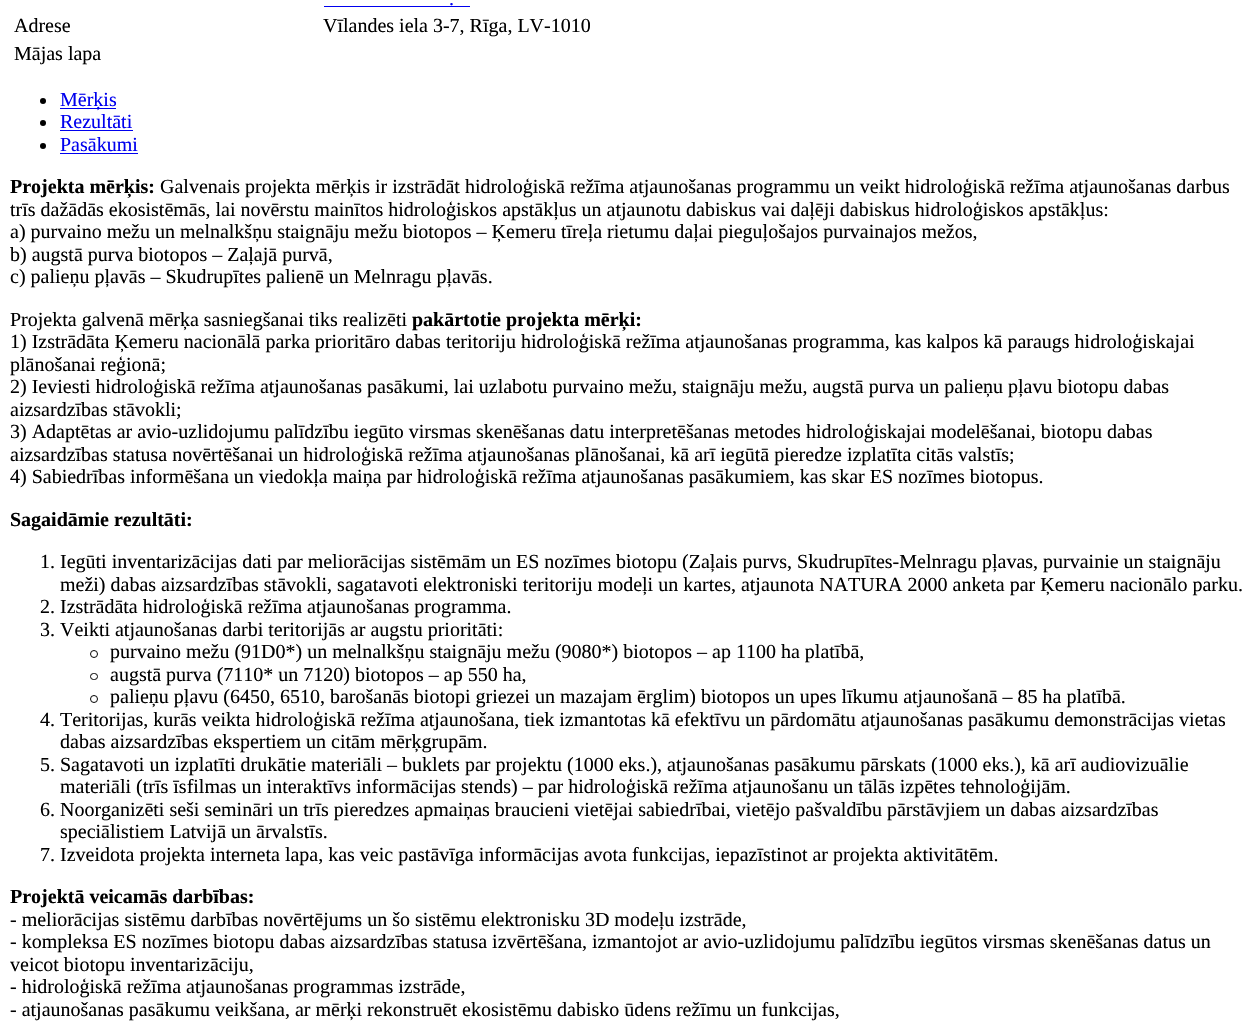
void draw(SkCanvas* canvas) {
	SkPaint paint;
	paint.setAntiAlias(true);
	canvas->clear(0xffffffff);
	SkFont f1(fontMgr->matchFamilyStyle("Liberation Serif", SkFontStyle::Normal()), 20);
	f1.setSubpixel(true);
	paint.setColor(0xff0000ee);
	canvas->drawString(".", 449, 5, f1, paint);
	canvas->drawRect(SkRect::MakeXYWH(324, 6, 146, 1), paint);
	paint.setColor(0xff000000);
	canvas->drawString("Adrese", 14, 32, f1, paint);
	canvas->drawString("Vīlandes iela 3-7, Rīga, LV-1010", 323, 32, f1, paint);
	canvas->drawString("Mājas lapa", 14, 60, f1, paint);
	canvas->drawCircle(43, 101, 3, paint);
	paint.setColor(0xff0000ee);
	canvas->drawRect(SkRect::MakeXYWH(60, 108, 56, 1), paint);
	canvas->drawString("Mērķis", 60, 106, f1, paint);
	paint.setColor(0xff000000);
	canvas->drawCircle(43, 123, 3, paint);
	paint.setColor(0xff0000ee);
	canvas->drawString("Rezultāti", 60, 128, f1, paint);
	canvas->drawRect(SkRect::MakeXYWH(60, 130, 73, 1), paint);
	paint.setColor(0xff000000);
	canvas->drawCircle(43, 146, 3, paint);
	paint.setColor(0xff0000ee);
	canvas->drawString("Pasākumi", 60, 151, f1, paint);
	canvas->drawRect(SkRect::MakeXYWH(60, 153, 78, 1), paint);
	SkFont f2(fontMgr->matchFamilyStyle("Liberation Serif", SkFontStyle::Bold()), 20);
	f2.setSubpixel(true);
	paint.setColor(0xff000000);
	canvas->drawString("Projekta mērķis:", 10, 193, f2, paint);
	canvas->drawString("Galvenais projekta mērķis ir izstrādāt hidroloģiskā režīma atjaunošanas programmu un veikt hidroloģiskā režīma atjaunošanas darbus", 160, 193, f1, paint);
	canvas->drawString("trīs dažādās ekosistēmās, lai novērstu mainītos hidroloģiskos apstākļus un atjaunotu dabiskus vai daļēji dabiskus hidroloģiskos apstākļus:", 10, 216, f1, paint);
	canvas->drawString("a) purvaino mežu un melnalkšņu staignāju mežu biotopos – Ķemeru tīreļa rietumu daļai pieguļošajos purvainajos mežos,", 10, 238, f1, paint);
	canvas->drawString("b) augstā purva biotopos – Zaļajā purvā,", 10, 261, f1, paint);
	canvas->drawString("c) palieņu pļavās – Skudrupītes palienē un Melnragu pļavās.", 10, 283, f1, paint);
	canvas->drawString("Projekta galvenā mērķa sasniegšanai tiks realizēti", 10, 326, f1, paint);
	canvas->drawString("pakārtotie projekta mērķi:", 412, 326, f2, paint);
	canvas->drawString("1) Izstrādāta Ķemeru nacionālā parka prioritāro dabas teritoriju hidroloģiskā režīma atjaunošanas programma, kas kalpos kā paraugs hidroloģiskajai", 10, 348, f1, paint);
	canvas->drawString("plānošanai reģionā;", 10, 371, f1, paint);
	canvas->drawString("2) Ieviesti hidroloģiskā režīma atjaunošanas pasākumi, lai uzlabotu purvaino mežu, staignāju mežu, augstā purva un palieņu pļavu biotopu dabas", 10, 393, f1, paint);
	canvas->drawString("aizsardzības stāvokli;", 10, 416, f1, paint);
	canvas->drawString("3) Adaptētas ar avio-uzlidojumu palīdzību iegūto virsmas skenēšanas datu interpretēšanas metodes hidroloģiskajai modelēšanai, biotopu dabas", 10, 438, f1, paint);
	canvas->drawString("aizsardzības statusa novērtēšanai un hidroloģiskā režīma atjaunošanas plānošanai, kā arī iegūtā pieredze izplatīta citās valstīs;", 10, 461, f1, paint);
	canvas->drawString("4) Sabiedrības informēšana un viedokļa maiņa par hidroloģiskā režīma atjaunošanas pasākumiem, kas skar ES nozīmes biotopus.", 10, 483, f1, paint);
	canvas->drawString("Sagaidāmie rezultāti:", 10, 526, f2, paint);
	canvas->drawString("1. Iegūti inventarizācijas dati par meliorācijas sistēmām un ES nozīmes biotopu (Zaļais purvs, Skudrupītes-Melnragu pļavas, purvainie un staignāju", 40, 568, f1, paint);
	canvas->drawString("meži) dabas aizsardzības stāvokli, sagatavoti elektroniski teritoriju modeļi un kartes, atjaunota NATURA 2000 anketa par Ķemeru nacionālo parku.", 60, 591, f1, paint);
	canvas->drawString("2. Izstrādāta hidroloģiskā režīma atjaunošanas programma.", 40, 613, f1, paint);
	canvas->drawString("3. Veikti atjaunošanas darbi teritorijās ar augstu prioritāti:", 40, 636, f1, paint);
	paint.setStroke(true);
	paint.setStrokeWidth(1);
	canvas->drawCircle(94, 654, 3.5, paint);
	paint.setStroke(false);
	canvas->drawString("purvaino mežu (91D0*) un melnalkšņu staignāju mežu (9080*) biotopos – ap 1100 ha platībā,", 110, 658, f1, paint);
	paint.setStroke(true);
	canvas->drawRoundRect(SkRect::MakeXYWH(90.5, 673.5, 7, 6), 3, 3, paint);
	paint.setStroke(false);
	canvas->drawString("augstā purva (7110* un 7120) biotopos – ap 550 ha,", 110, 681, f1, paint);
	paint.setStroke(true);
	canvas->drawCircle(94, 699, 3.5, paint);
	paint.setStroke(false);
	canvas->drawString("palieņu pļavu (6450, 6510, barošanās biotopi griezei un mazajam ērglim) biotopos un upes līkumu atjaunošanā – 85 ha platībā.", 110, 703, f1, paint);
	canvas->drawString("4. Teritorijas, kurās veikta hidroloģiskā režīma atjaunošana, tiek izmantotas kā efektīvu un pārdomātu atjaunošanas pasākumu demonstrācijas vietas", 40, 726, f1, paint);
	canvas->drawString("dabas aizsardzības ekspertiem un citām mērķgrupām.", 60, 748, f1, paint);
	canvas->drawString("5. Sagatavoti un izplatīti drukātie materiāli – buklets par projektu (1000 eks.), atjaunošanas pasākumu pārskats (1000 eks.), kā arī audiovizuālie", 40, 771, f1, paint);
	canvas->drawString("materiāli (trīs īsfilmas un interaktīvs informācijas stends) – par hidroloģiskā režīma atjaunošanu un tālās izpētes tehnoloģijām.", 60, 793, f1, paint);
	canvas->drawString("6. Noorganizēti seši semināri un trīs pieredzes apmaiņas braucieni vietējai sabiedrībai, vietējo pašvaldību pārstāvjiem un dabas aizsardzības", 40, 816, f1, paint);
	canvas->drawString("speciālistiem Latvijā un ārvalstīs.", 60, 838, f1, paint);
	canvas->drawString("7. Izveidota projekta interneta lapa, kas veic pastāvīga informācijas avota funkcijas, iepazīstinot ar projekta aktivitātēm.", 40, 861, f1, paint);
	canvas->drawString("Projektā veicamās darbības:", 10, 903, f2, paint);
	canvas->drawString("- meliorācijas sistēmu darbības novērtējums un šo sistēmu elektronisku 3D modeļu izstrāde,", 10, 926, f1, paint);
	canvas->drawString("- kompleksa ES nozīmes biotopu dabas aizsardzības statusa izvērtēšana, izmantojot ar avio-uzlidojumu palīdzību iegūtos virsmas skenēšanas datus un", 10, 948, f1, paint);
	canvas->drawString("veicot biotopu inventarizāciju,", 10, 971, f1, paint);
	canvas->drawString("- hidroloģiskā režīma atjaunošanas programmas izstrāde,", 10, 993, f1, paint);
	canvas->drawString("- atjaunošanas pasākumu veikšana, ar mērķi rekonstruēt ekosistēmu dabisko ūdens režīmu un funkcijas,", 10, 1016, f1, paint);
}
